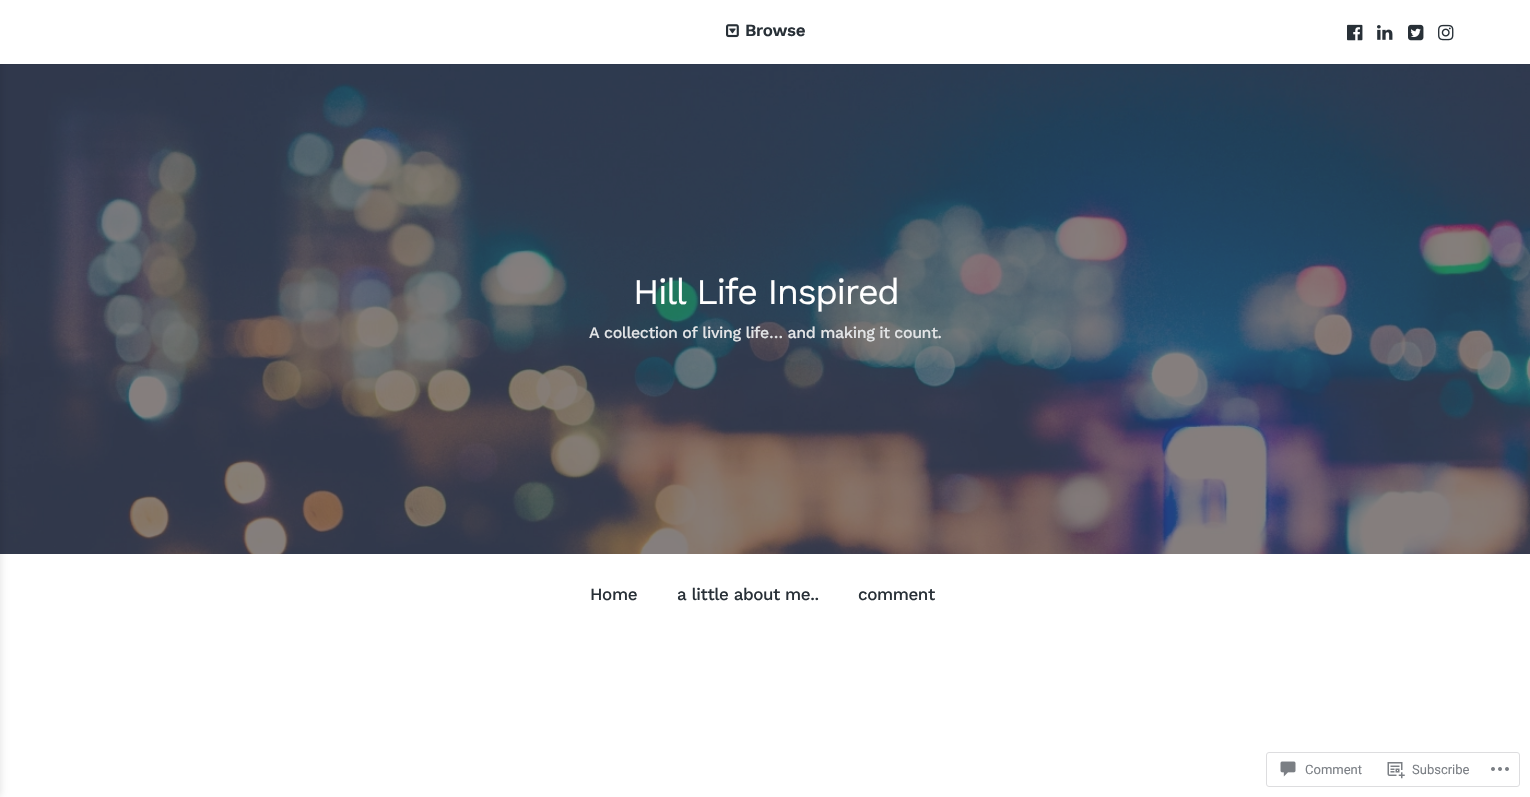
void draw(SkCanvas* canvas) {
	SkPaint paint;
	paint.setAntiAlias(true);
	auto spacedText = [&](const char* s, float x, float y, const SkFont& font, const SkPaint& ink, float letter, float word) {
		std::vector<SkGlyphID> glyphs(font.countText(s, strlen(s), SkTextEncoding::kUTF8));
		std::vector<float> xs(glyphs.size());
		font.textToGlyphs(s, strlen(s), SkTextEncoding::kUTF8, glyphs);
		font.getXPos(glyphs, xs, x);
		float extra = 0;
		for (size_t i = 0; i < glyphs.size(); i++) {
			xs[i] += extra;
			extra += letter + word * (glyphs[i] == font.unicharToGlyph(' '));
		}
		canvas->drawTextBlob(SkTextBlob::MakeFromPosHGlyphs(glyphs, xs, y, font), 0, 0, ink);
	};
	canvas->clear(0xffffffff);
	paint.setColor(0xff343e47);
	canvas->drawRect(SkRect::MakeXYWH(0, 64, 1530, 490), paint);
	canvas->drawImageRect(SkImages::DeferredFromEncodedData(SkData::MakeFromFileName("img6.png")), SkRect::MakeXYWH(0, 64, 1530, 490), SkSamplingOptions());
	paint.setColor(0x21000000);
	paint.setMaskFilter(SkMaskFilter::MakeBlur(kNormal_SkBlurStyle, 4));
	canvas->drawRect(SkRect::MakeXYWH(-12, 0, 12, 797), paint);
	paint.setMaskFilter(nullptr);
	paint.setColor(0x40000000);
	paint.setMaskFilter(SkMaskFilter::MakeBlur(kNormal_SkBlurStyle, 0.5));
	canvas->drawRect(SkRect::MakeXYWH(1, 0, 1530, 64), paint);
	paint.setMaskFilter(nullptr);
	paint.setColor(0xffffffff);
	canvas->drawRect(SkRect::MakeXYWH(0, 0, 1530, 64), paint);
	canvas->drawImageRect(SkImages::DeferredFromEncodedData(SkData::MakeFromFileName("img1.png")), SkRect::MakeXYWH(726, 24, 13, 14), SkSamplingOptions());
	SkFont f1(fontMgr->matchFamilyStyle("Work Sans", SkFontStyle(600, SkFontStyle::kNormal_Width, SkFontStyle::kUpright_Slant)), 17);
	f1.setSubpixel(true);
	paint.setColor(0xff283037);
	spacedText("Browse", 745, 36, f1, paint, -0.4, 0);
	canvas->drawImageRect(SkImages::DeferredFromEncodedData(SkData::MakeFromFileName("img2.png")), SkRect::MakeXYWH(1347, 24, 16, 17), SkSamplingOptions());
	canvas->drawImageRect(SkImages::DeferredFromEncodedData(SkData::MakeFromFileName("img3.png")), SkRect::MakeXYWH(1377, 25, 16, 15), SkSamplingOptions());
	canvas->drawImageRect(SkImages::DeferredFromEncodedData(SkData::MakeFromFileName("img4.png")), SkRect::MakeXYWH(1408, 24, 16, 17), SkSamplingOptions());
	canvas->drawImageRect(SkImages::DeferredFromEncodedData(SkData::MakeFromFileName("img5.png")), SkRect::MakeXYWH(1438, 24, 16, 17), SkSamplingOptions());
	SkFont f2(fontMgr->matchFamilyStyle("Work Sans", SkFontStyle::Normal()), 36);
	f2.setSubpixel(true);
	paint.setColor(0xffffffff);
	spacedText("Hill Life Inspired", 633, 304, f2, paint, -1.4, 0);
	SkFont f3(fontMgr->matchFamilyStyle("Work Sans", SkFontStyle(500, SkFontStyle::kNormal_Width, SkFontStyle::kUpright_Slant)), 16);
	f3.setSubpixel(true);
	paint.setColor(0xffe3e5e7);
	spacedText("A collection of living life… and making it count.", 589, 338, f3, paint, -0.4, 0);
	SkFont f4(fontMgr->matchFamilyStyle("Work Sans", SkFontStyle(500, SkFontStyle::kNormal_Width, SkFontStyle::kUpright_Slant)), 17);
	f4.setSubpixel(true);
	paint.setColor(0xff283037);
	spacedText("Home", 590, 600, f4, paint, -0.4, 0);
	spacedText("a little about me..", 677, 600, f4, paint, -0.4, 0);
	spacedText("comment", 858, 600, f4, paint, -0.4, 0);
	paint.setStroke(true);
	paint.setStrokeWidth(1);
	paint.setColor(0xffdddddf);
	canvas->drawRoundRect(SkRect::MakeXYWH(1266.5, 752.5, 253, 34), 2.5, 2.5, paint);
	canvas->drawImageRect(SkImages::DeferredFromEncodedData(SkData::MakeFromFileName("img7.png")), SkRect::MakeXYWH(1280, 761, 16, 16), SkSamplingOptions());
	SkFont f5(fontMgr->matchFamilyStyle("Roboto", SkFontStyle::Normal()), 13);
	f5.setSubpixel(true);
	paint.setStroke(false);
	paint.setColor(0xff7b7f85);
	canvas->drawString("Comment", 1305, 774, f5, paint);
	canvas->drawImageRect(SkImages::DeferredFromEncodedData(SkData::MakeFromFileName("img8.png")), SkRect::MakeXYWH(1387, 762, 18, 17), SkSamplingOptions());
	canvas->drawString("Subscribe", 1412, 774, f5, paint);
	canvas->drawImageRect(SkImages::DeferredFromEncodedData(SkData::MakeFromFileName("img9.png")), SkRect::MakeXYWH(1491, 767, 18, 4), SkSamplingOptions());
}
